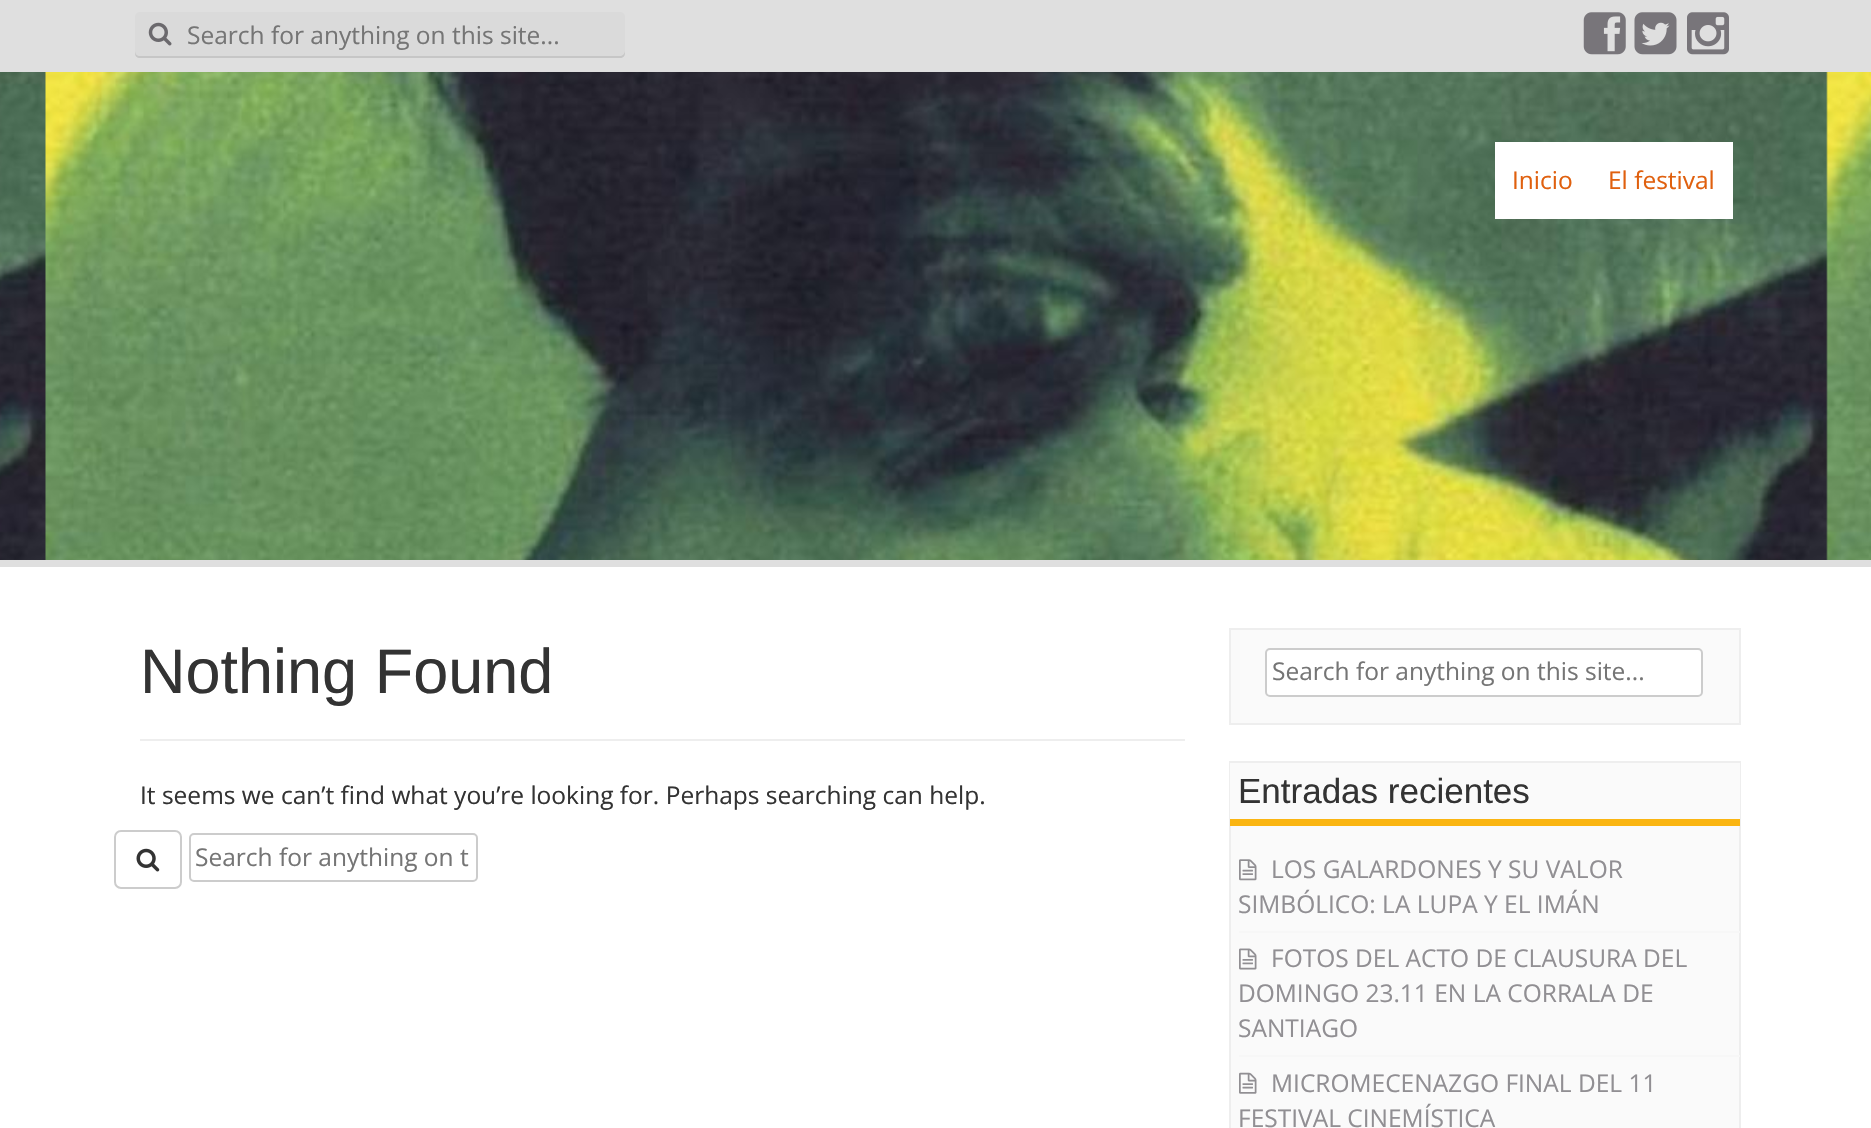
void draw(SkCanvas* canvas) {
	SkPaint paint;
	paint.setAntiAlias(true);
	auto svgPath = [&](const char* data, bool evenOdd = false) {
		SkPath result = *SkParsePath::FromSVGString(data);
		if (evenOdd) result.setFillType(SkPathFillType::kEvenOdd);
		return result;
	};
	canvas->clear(0xffffffff);
	paint.setColor(0xffdfdfdf);
	canvas->drawRect(SkRect::MakeXYWH(0, 0, 1871, 72), paint);
	paint.setColor(0xffdadada);
	canvas->drawRoundRect(SkRect::MakeXYWH(135, 12, 490, 46), 5, 5, paint);
	canvas->drawImageRect(SkImages::DeferredFromEncodedData(SkData::MakeFromFileName("img1.png")), SkRect::MakeXYWH(148, 22, 24, 24), SkSamplingOptions());
	paint.setColor(0xffc6c6c6);
	canvas->drawPath(svgPath("M135 51V53C135 56 137 58 140 58H620C623 58 625 56 625 53V51C625 54 622 56 620 56H140C137 56 135 54 135 51Z"), paint);
	SkFont f1(fontMgr->matchFamilyStyle("Open Sans", SkFontStyle::Normal()), 24.5);
	f1.setSubpixel(true);
	paint.setColor(0xff757575);
	canvas->drawString("Search for anything on this site...", 187, 44, f1, paint);
	canvas->drawImageRect(SkImages::DeferredFromEncodedData(SkData::MakeFromFileName("img2.png")), SkRect::MakeXYWH(1583, 12, 43, 43), SkSamplingOptions());
	canvas->drawImageRect(SkImages::DeferredFromEncodedData(SkData::MakeFromFileName("img3.png")), SkRect::MakeXYWH(1634, 12, 43, 43), SkSamplingOptions());
	canvas->drawImageRect(SkImages::DeferredFromEncodedData(SkData::MakeFromFileName("img4.png")), SkRect::MakeXYWH(1687, 12, 42, 43), SkSamplingOptions());
	canvas->drawImageRect(SkImages::DeferredFromEncodedData(SkData::MakeFromFileName("img9.png")), SkRect::MakeXYWH(0, 72, 1871, 488), SkSamplingOptions());
	paint.setColor(0xffffffff);
	canvas->drawRect(SkRect::MakeXYWH(1495, 142, 238, 77), paint);
	paint.setColor(0xffe0600e);
	canvas->drawString("Inicio", 1512, 189, f1, paint);
	canvas->drawString("El festival", 1608, 189, f1, paint);
	paint.setColor(0xffdfdfdf);
	canvas->drawRect(SkRect::MakeXYWH(0, 560, 1871, 7), paint);
	paint.setColor(0xffeeeeee);
	canvas->drawRect(SkRect::MakeXYWH(140, 739, 1045, 2), paint);
	SkFont f2(fontMgr->matchFamilyStyle("Liberation Sans", SkFontStyle::Normal()), 63);
	f2.setSubpixel(true);
	paint.setColor(0xff333333);
	canvas->drawString("Nothing Found", 140, 693, f2, paint);
	canvas->drawString("It seems we can’t find what you’re looking for. Perhaps searching can help.", 140, 804, f1, paint);
	paint.setStroke(true);
	paint.setStrokeWidth(2);
	paint.setColor(0xffcccccc);
	canvas->drawRoundRect(SkRect::MakeXYWH(115, 831, 66, 57), 6, 6, paint);
	canvas->drawImageRect(SkImages::DeferredFromEncodedData(SkData::MakeFromFileName("img5.png")), SkRect::MakeXYWH(136, 848, 24, 24), SkSamplingOptions());
	canvas->drawRoundRect(SkRect::MakeXYWH(190, 834, 287, 47), 4, 4, paint);
	paint.setStroke(false);
	paint.setColor(0xff757575);
	canvas->drawString("Search for anything on t", 195, 866, f1, paint);
	paint.setColor(0xfffafafa);
	canvas->drawRect(SkRect::MakeXYWH(1230, 629, 510, 95), paint);
	paint.setStroke(true);
	paint.setColor(0xffeeeeee);
	canvas->drawRect(SkRect::MakeXYWH(1230, 629, 510, 95), paint);
	paint.setStroke(false);
	paint.setColor(0xffffffff);
	canvas->drawRoundRect(SkRect::MakeXYWH(1266, 649, 436, 47), 4, 4, paint);
	paint.setStroke(true);
	paint.setColor(0xffcccccc);
	canvas->drawRoundRect(SkRect::MakeXYWH(1266, 649, 436, 47), 4, 4, paint);
	paint.setStroke(false);
	paint.setColor(0xff757575);
	canvas->drawString("Search for anything on this site...", 1272, 680, f1, paint);
	paint.setColor(0xfffafafa);
	canvas->drawRect(SkRect::MakeXYWH(1231, 826, 508, 302), paint);
	paint.setStroke(true);
	paint.setColor(0xffeeeeee);
	canvas->drawRect(SkRect::MakeXYWH(1230, 762, 510, 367), paint);
	paint.setStroke(false);
	paint.setColor(0xfffafafa);
	canvas->drawRect(SkRect::MakeXYWH(1230, 763, 510, 56), paint);
	paint.setColor(0xfffab512);
	canvas->drawRect(SkRect::MakeXYWH(1230, 819, 510, 7), paint);
	SkFont f3(fontMgr->matchFamilyStyle("Liberation Sans", SkFontStyle::Normal()), 35);
	f3.setSubpixel(true);
	paint.setColor(0xff333333);
	canvas->drawString("Entradas recientes", 1238, 803, f3, paint);
	paint.setColor(0xfff7f7f7);
	canvas->drawRect(SkRect::MakeXYWH(1239, 931, 501, 2), paint);
	canvas->drawImageRect(SkImages::DeferredFromEncodedData(SkData::MakeFromFileName("img6.png")), SkRect::MakeXYWH(1239, 859, 18, 22), SkSamplingOptions());
	paint.setColor(0xff918f93);
	canvas->drawString("LOS GALARDONES Y SU VALOR", 1271, 878, f1, paint);
	canvas->drawString("SIMBÓLICO: LA LUPA Y EL IMÁN", 1238, 913, f1, paint);
	paint.setColor(0xfff7f7f7);
	canvas->drawRect(SkRect::MakeXYWH(1239, 1055, 501, 2), paint);
	canvas->drawImageRect(SkImages::DeferredFromEncodedData(SkData::MakeFromFileName("img7.png")), SkRect::MakeXYWH(1239, 948, 18, 22), SkSamplingOptions());
	paint.setColor(0xff918f93);
	canvas->drawString("FOTOS DEL ACTO DE CLAUSURA DEL", 1271, 967, f1, paint);
	canvas->drawString("DOMINGO 23.11 EN LA CORRALA DE", 1238, 1002, f1, paint);
	canvas->drawString("SANTIAGO", 1238, 1037, f1, paint);
	canvas->drawImageRect(SkImages::DeferredFromEncodedData(SkData::MakeFromFileName("img8.png")), SkRect::MakeXYWH(1239, 1072, 18, 22), SkSamplingOptions());
	canvas->drawString("MICROMECENAZGO FINAL DEL 11", 1271, 1092, f1, paint);
	canvas->drawString("FESTIVAL CINEMÍSTICA", 1238, 1127, f1, paint);
}
